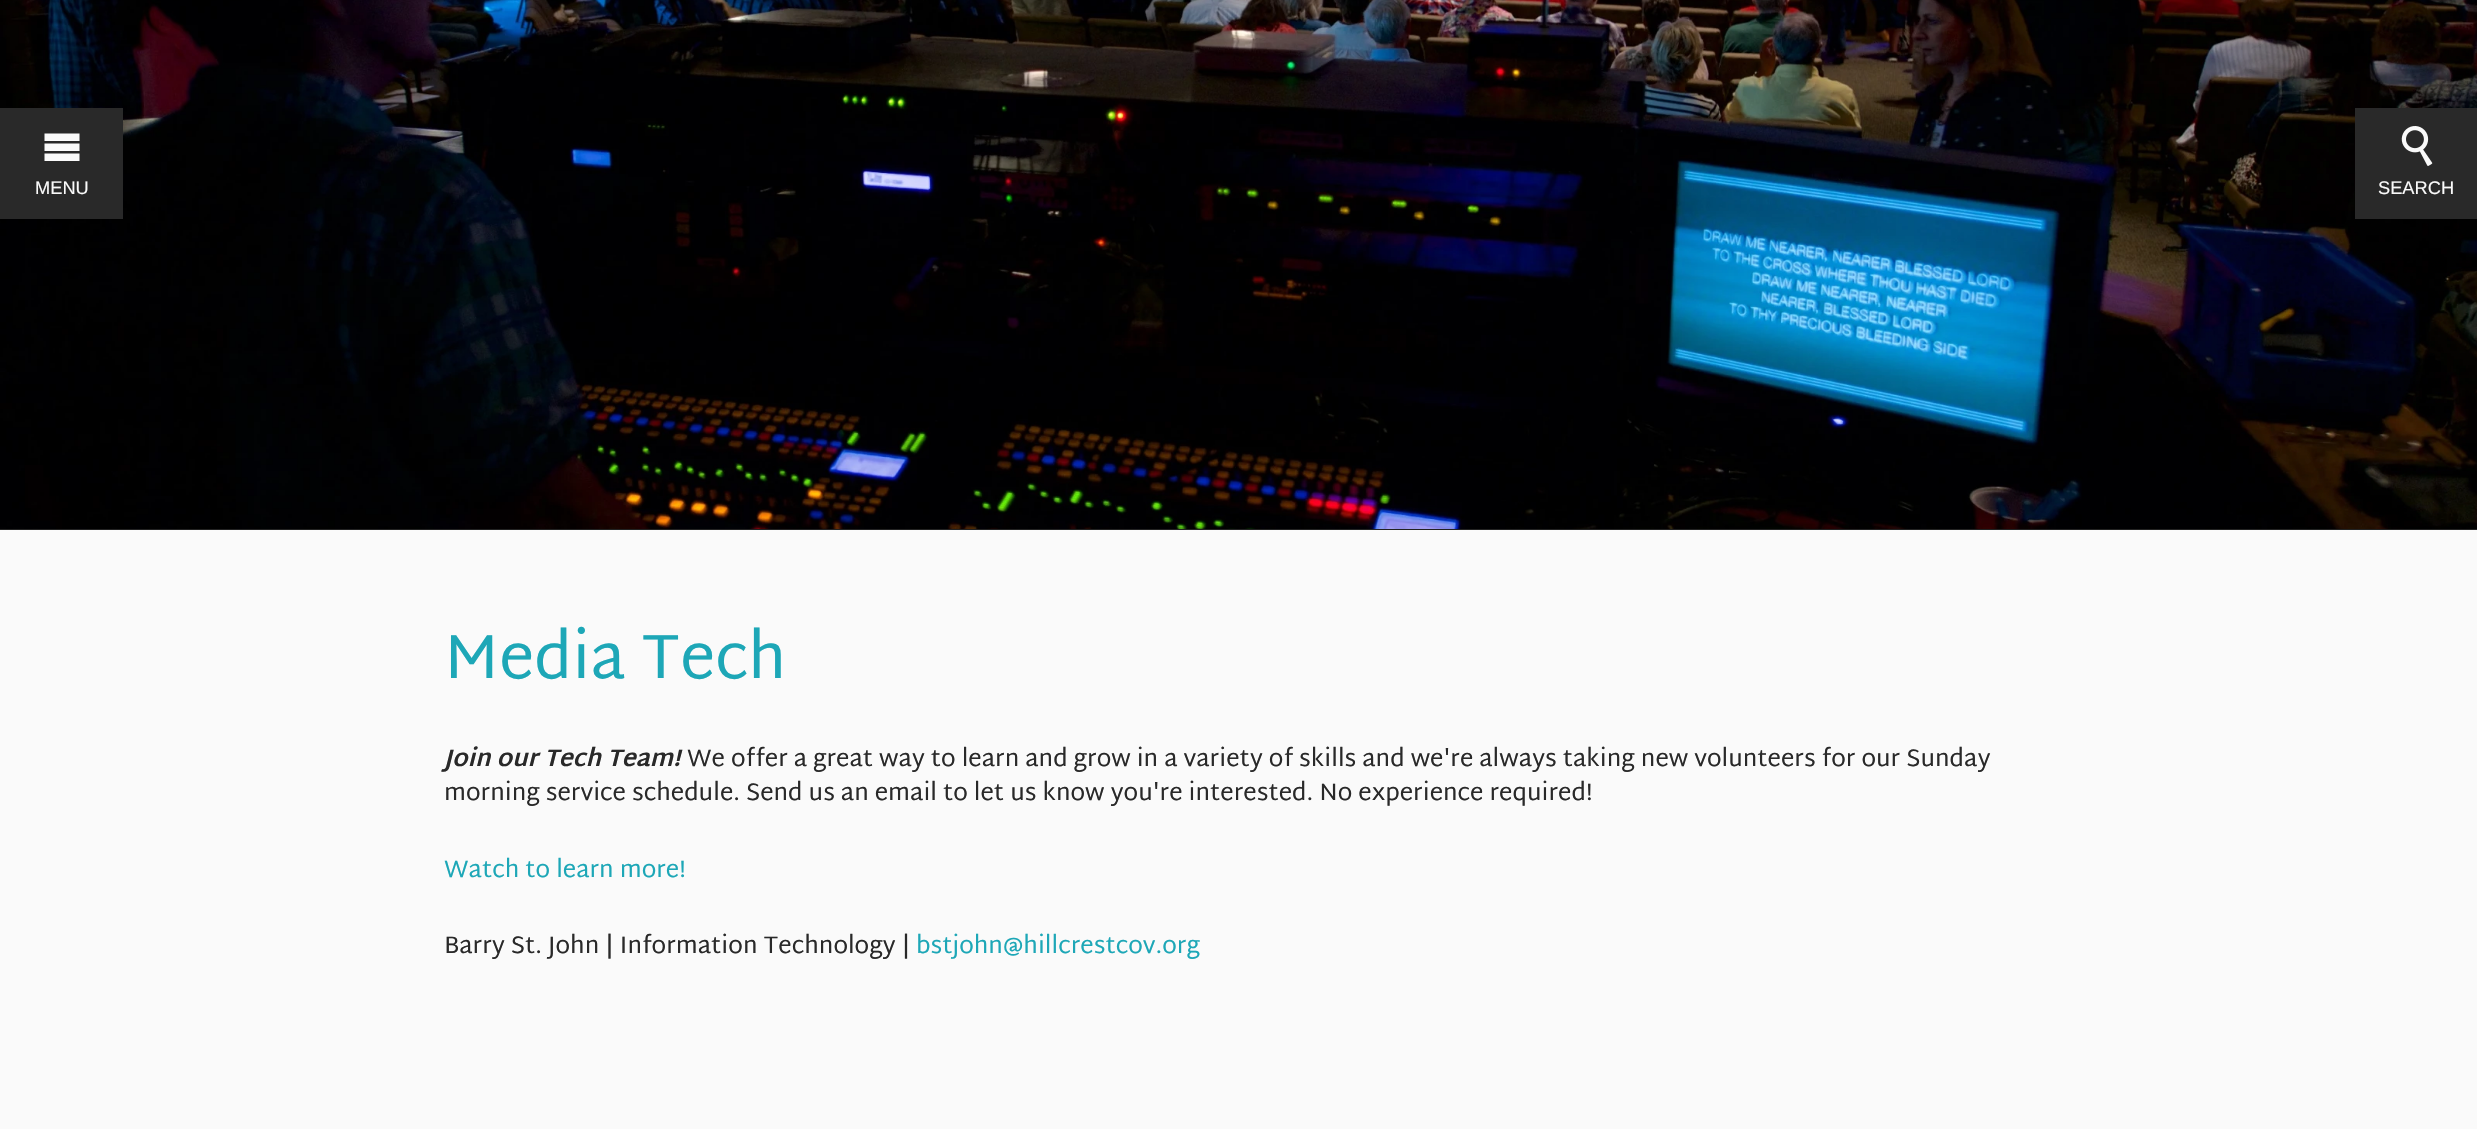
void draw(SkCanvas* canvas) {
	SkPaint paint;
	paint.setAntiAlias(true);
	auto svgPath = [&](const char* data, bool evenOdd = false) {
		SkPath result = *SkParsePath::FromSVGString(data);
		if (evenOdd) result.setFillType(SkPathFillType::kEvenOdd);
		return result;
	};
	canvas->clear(0xff222222);
	canvas->drawImageRect(SkImages::DeferredFromEncodedData(SkData::MakeFromFileName("img2.png")), SkRect::MakeXYWH(0, 0, 2477, 529), SkSamplingOptions());
	paint.setColor(0xff292929);
	canvas->drawRect(SkRect::MakeXYWH(0, 108, 123, 111), paint);
	paint.setColor(0xfffafafa);
	canvas->drawPath(svgPath("M44.5 133.5H79.5V141H44.5ZM44.5 143.5H79.5V151H44.5ZM44.5 153.5H79.5V161H44.5Z"), paint);
	SkFont f1(fontMgr->matchFamilyStyle("Liberation Sans", SkFontStyle::Normal()), 18.25);
	f1.setSubpixel(true);
	canvas->drawString("MENU", 35, 194, f1, paint);
	paint.setColor(0xff292929);
	canvas->drawRect(SkRect::MakeXYWH(2355, 108, 122, 111), paint);
	canvas->drawImageRect(SkImages::DeferredFromEncodedData(SkData::MakeFromFileName("img1.png")), SkRect::MakeXYWH(2401, 126, 32, 40), SkSamplingOptions());
	paint.setColor(0xfffafafa);
	canvas->drawString("SEARCH", 2378, 194, f1, paint);
	canvas->drawRect(SkRect::MakeXYWH(0, 530, 2477, 599), paint);
	SkFont f2(fontMgr->matchFamilyStyle("Martel Sans", SkFontStyle::Normal()), 63);
	f2.setSubpixel(true);
	paint.setColor(0xff1da7b7);
	canvas->drawString("Media Tech", 444, 678, f2, paint);
	SkFont f3(fontMgr->matchFamilyStyle("Martel Sans", SkFontStyle::BoldItalic()), 24);
	f3.setSubpixel(true);
	paint.setColor(0xff292929);
	canvas->drawString("Join our Tech Team!", 444, 766, f3, paint);
	SkFont f4(fontMgr->matchFamilyStyle("Martel Sans", SkFontStyle::Normal()), 24);
	f4.setSubpixel(true);
	canvas->drawString("We offer a great way to learn and grow in a variety of skills and we're always taking new volunteers for our Sunday", 687, 766, f4, paint);
	canvas->drawString("morning service schedule. Send us an email to let us know you're interested. No experience required!", 444, 800, f4, paint);
	paint.setColor(0xff1da7b7);
	canvas->drawString("Watch to learn more!", 444, 877, f4, paint);
	paint.setColor(0xff292929);
	canvas->drawString("Barry St. John | Information Technology |", 444, 953, f4, paint);
	paint.setColor(0xff1da7b7);
	canvas->drawString("bstjohn@hillcrestcov.org", 916, 953, f4, paint);
}
